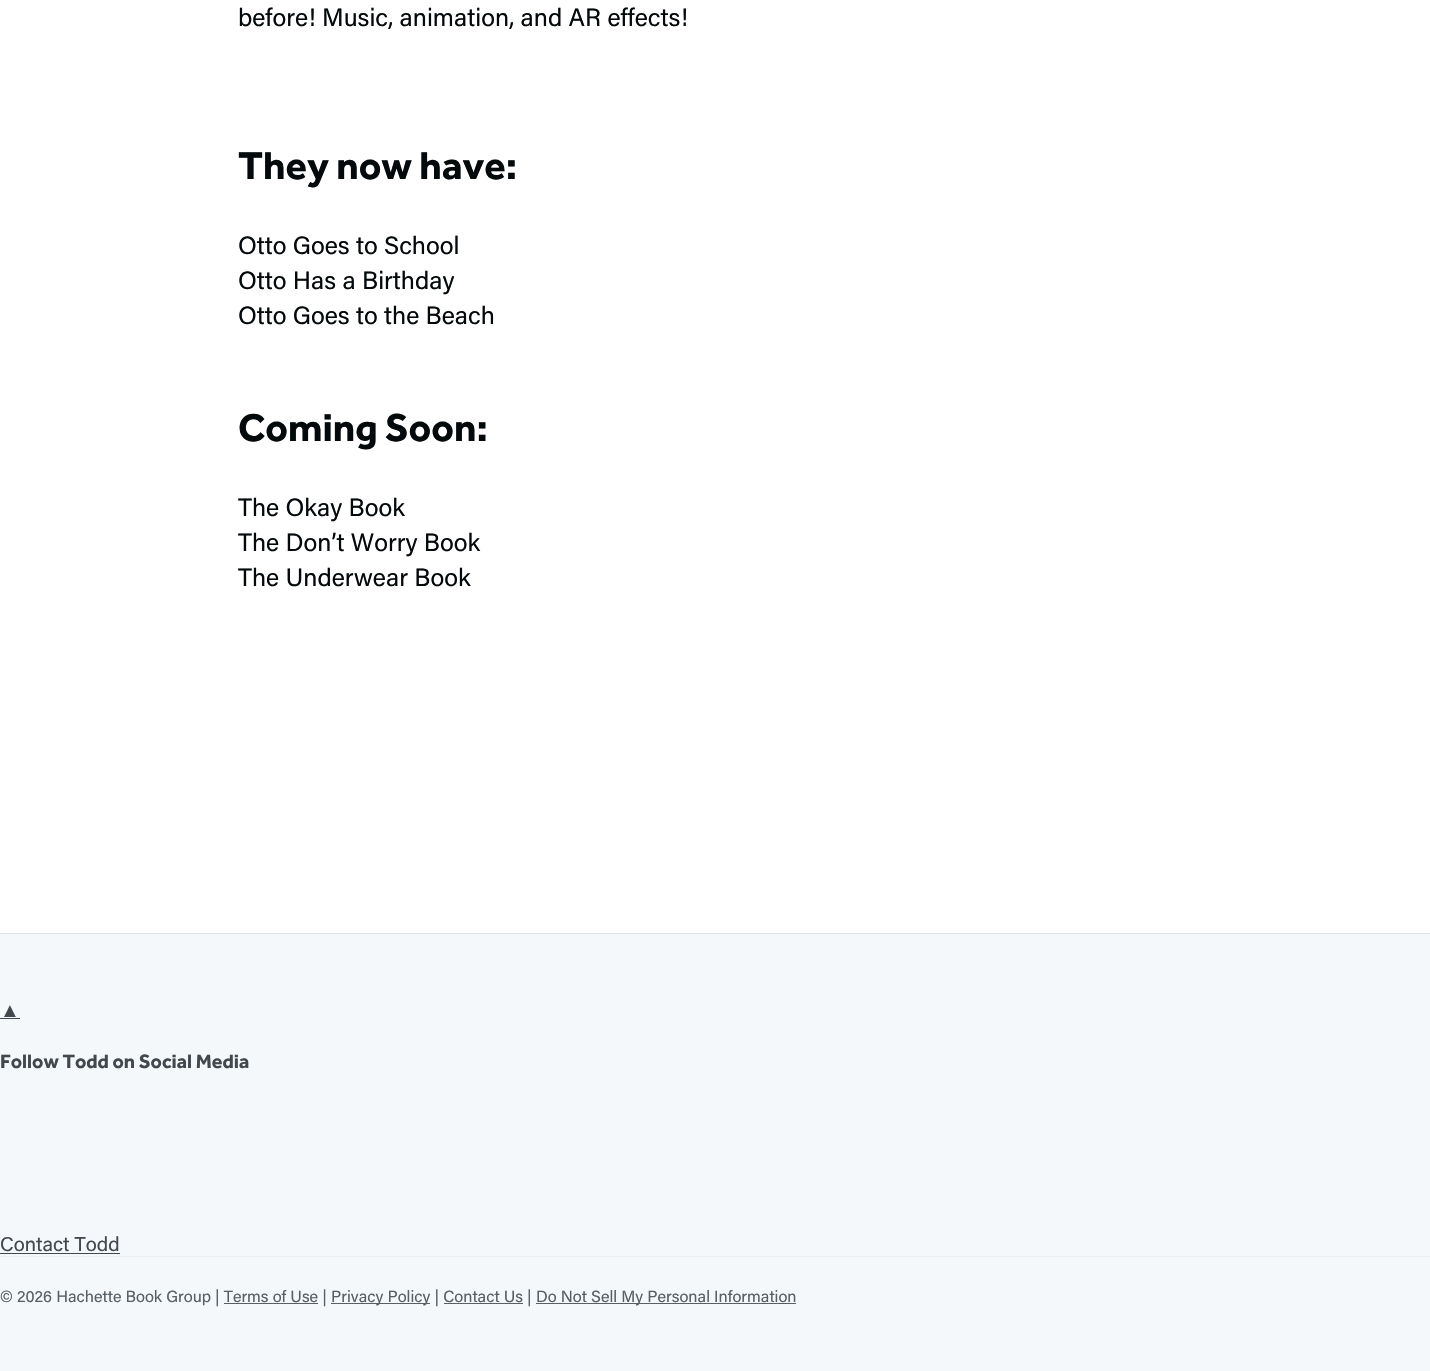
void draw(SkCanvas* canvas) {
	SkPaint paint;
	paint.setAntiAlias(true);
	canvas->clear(0xffffffff);
	SkFont f1(fontMgr->matchFamilyStyle("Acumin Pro", SkFontStyle::Normal()), 25);
	f1.setSubpixel(true);
	paint.setColor(0xff04090b);
	canvas->drawString("before! Music, animation, and AR effects!", 238, 26, f1, paint);
	SkFont f2(fontMgr->matchFamilyStyle("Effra", SkFontStyle::Bold()), 40);
	f2.setSubpixel(true);
	canvas->drawString("They now have:", 238, 179, f2, paint);
	canvas->drawString("Otto Goes to School", 238, 254, f1, paint);
	canvas->drawString("Otto Has a Birthday", 238, 289, f1, paint);
	canvas->drawString("Otto Goes to the Beach", 238, 324, f1, paint);
	canvas->drawString("Coming Soon:", 238, 441, f2, paint);
	canvas->drawString("The Okay Book", 238, 516, f1, paint);
	canvas->drawString("The Don’t Worry Book", 238, 551, f1, paint);
	canvas->drawString("The Underwear Book", 238, 586, f1, paint);
	paint.setColor(0xfff4f8fa);
	canvas->drawRect(SkRect::MakeXYWH(0, 934, 1430, 437), paint);
	paint.setColor(0xffe2e3e4);
	canvas->drawRect(SkRect::MakeXYWH(0, 933, 1430, 1), paint);
	SkFont f3(fontMgr->matchFamilyStyle("Liberation Sans", SkFontStyle::Normal()), 20);
	f3.setSubpixel(true);
	paint.setColor(0xff42484d);
	canvas->drawString("▲", 0, 1017, f3, paint);
	canvas->drawRect(SkRect::MakeXYWH(0, 1018, 20, 1), paint);
	SkFont f4(fontMgr->matchFamilyStyle("Effra", SkFontStyle::Bold()), 20);
	f4.setSubpixel(true);
	canvas->drawString("Follow Todd on Social Media", 0, 1068, f4, paint);
	SkFont f5(fontMgr->matchFamilyStyle("Acumin Pro", SkFontStyle::Normal()), 20);
	f5.setSubpixel(true);
	canvas->drawString("Contact Todd", 0, 1251, f5, paint);
	canvas->drawRect(SkRect::MakeXYWH(0, 1253, 120, 1), paint);
	paint.setColor(0xffe9eff1);
	canvas->drawRect(SkRect::MakeXYWH(0, 1256, 1430, 1), paint);
	SkFont f6(fontMgr->matchFamilyStyle("Acumin Pro", SkFontStyle::Normal()), 16.25);
	f6.setSubpixel(true);
	paint.setColor(0xff585f65);
	canvas->drawString("© 2026 Hachette Book Group | Terms of Use |", 0, 1302, f6, paint);
	canvas->drawRect(SkRect::MakeXYWH(331, 1303, 99, 1), paint);
	canvas->drawString("Privacy Policy | Contact Us |", 331, 1302, f6, paint);
	canvas->drawRect(SkRect::MakeXYWH(536, 1303, 260, 1), paint);
	canvas->drawString("Do Not Sell My Personal Information", 536, 1302, f6, paint);
	canvas->drawRect(SkRect::MakeXYWH(224, 1303, 94, 1), paint);
	canvas->drawRect(SkRect::MakeXYWH(444, 1303, 79, 1), paint);
}
